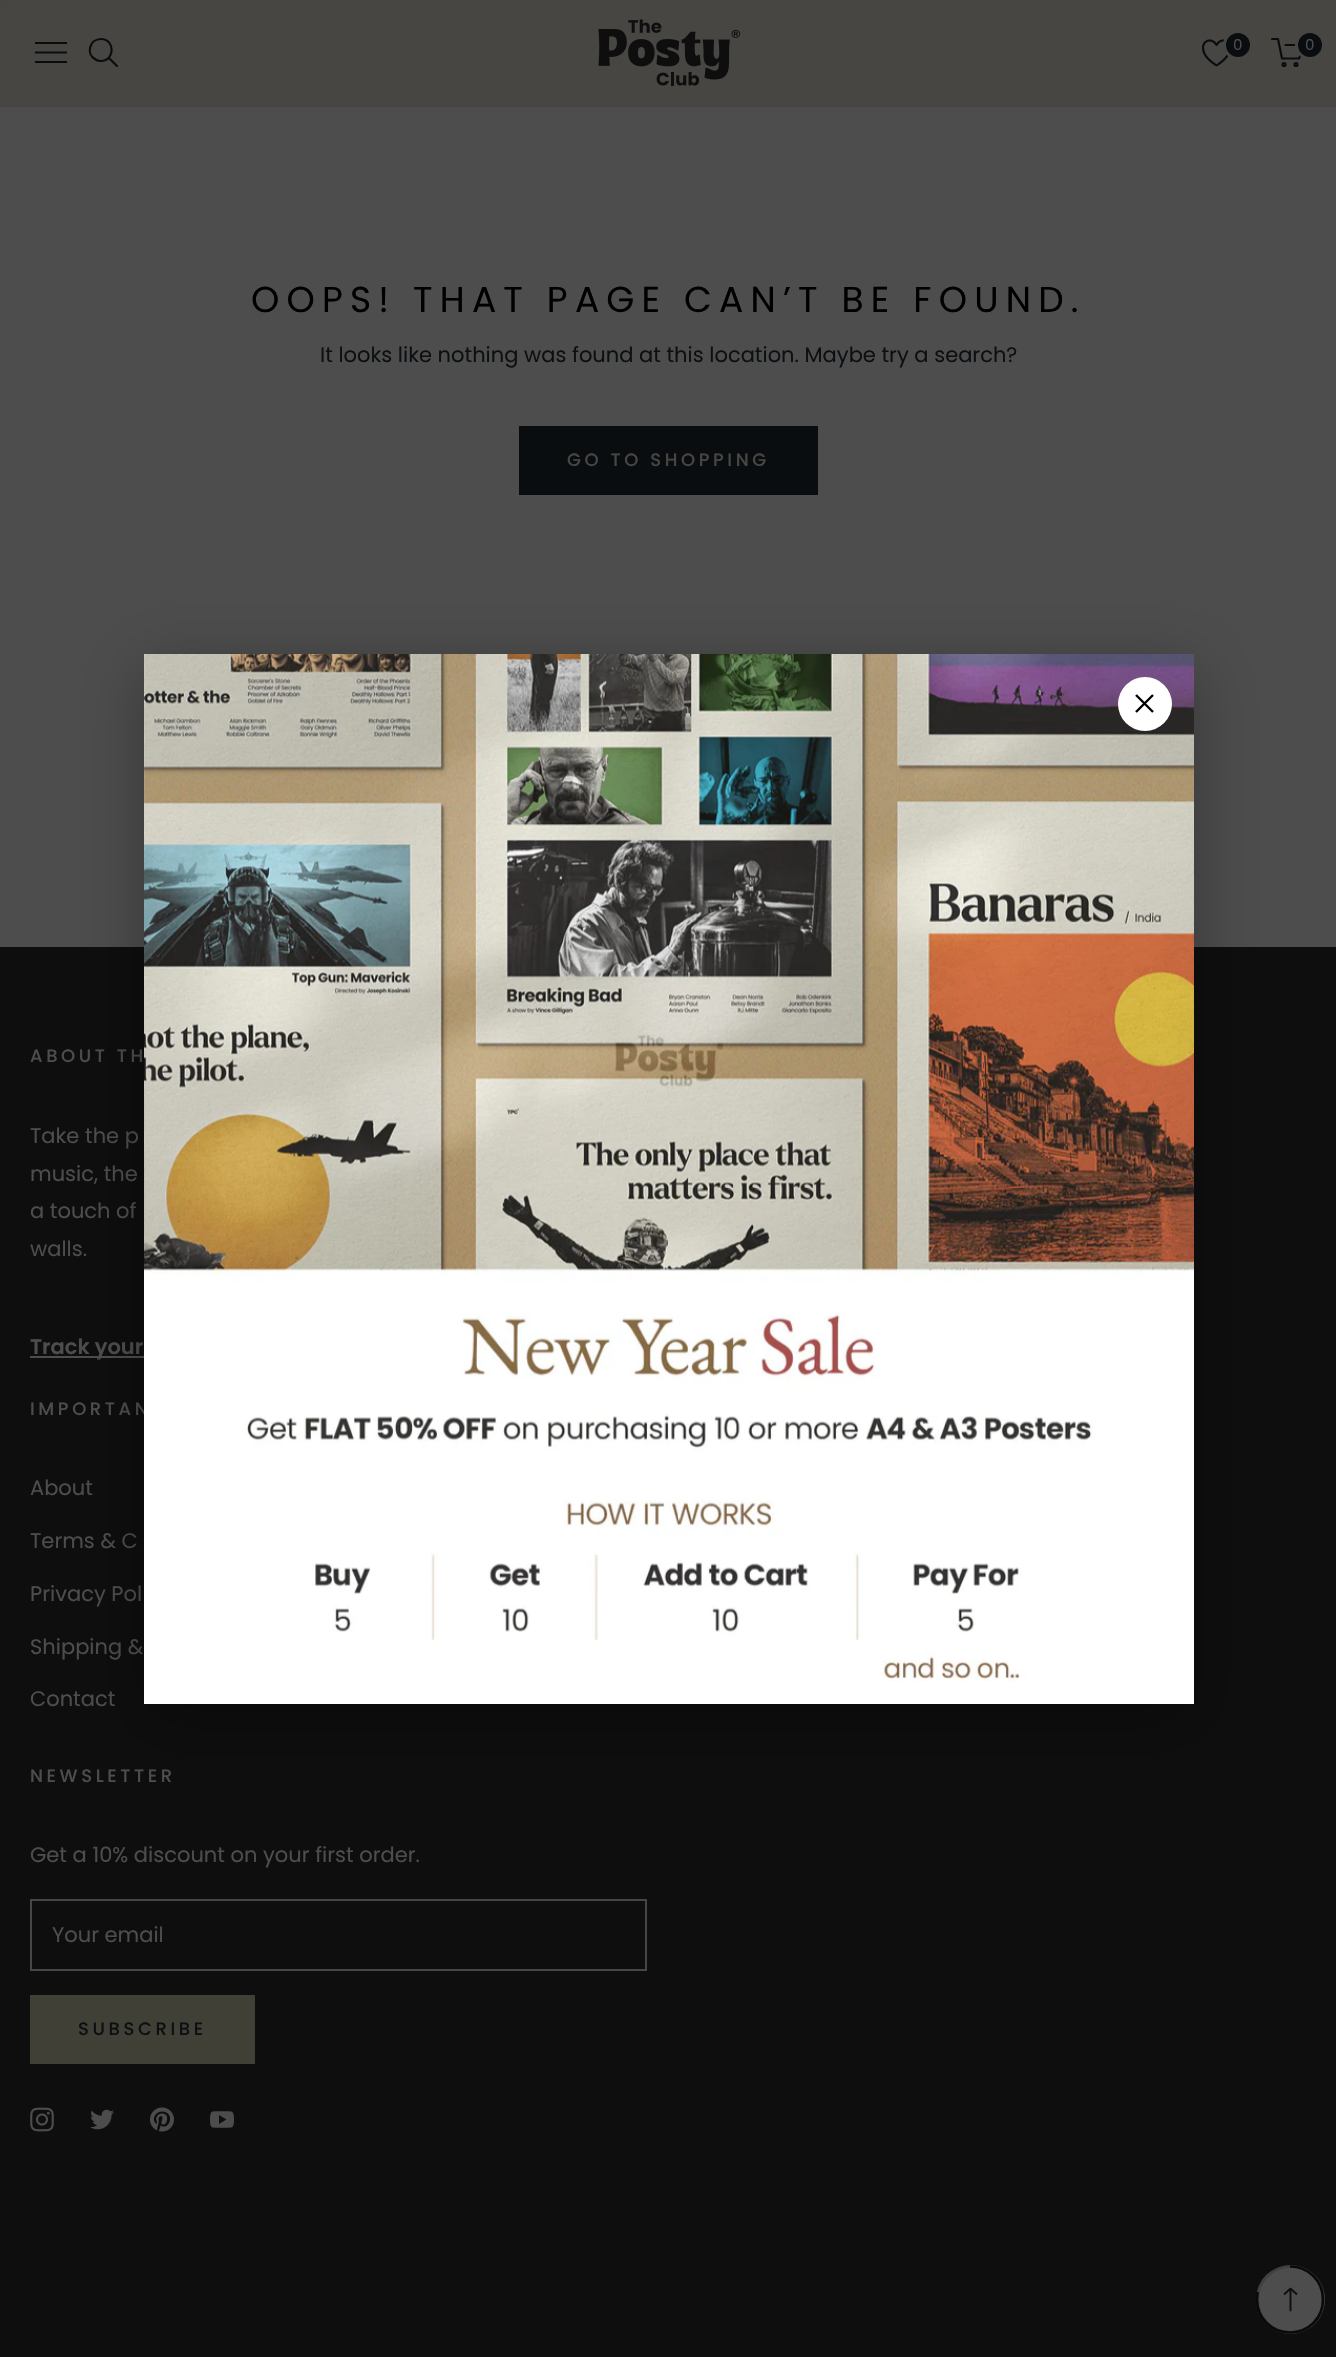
void draw(SkCanvas* canvas) {
	SkPaint paint;
	paint.setAntiAlias(true);
	auto spacedText = [&](const char* s, float x, float y, const SkFont& font, const SkPaint& ink, float letter, float word) {
		std::vector<SkGlyphID> glyphs(font.countText(s, strlen(s), SkTextEncoding::kUTF8));
		std::vector<float> xs(glyphs.size());
		font.textToGlyphs(s, strlen(s), SkTextEncoding::kUTF8, glyphs);
		font.getXPos(glyphs, xs, x);
		float extra = 0;
		for (size_t i = 0; i < glyphs.size(); i++) {
			xs[i] += extra;
			extra += letter + word * (glyphs[i] == font.unicharToGlyph(' '));
		}
		canvas->drawTextBlob(SkTextBlob::MakeFromPosHGlyphs(glyphs, xs, y, font), 0, 0, ink);
	};
	auto svgPath = [&](const char* data, bool evenOdd = false) {
		SkPath result = *SkParsePath::FromSVGString(data);
		if (evenOdd) result.setFillType(SkPathFillType::kEvenOdd);
		return result;
	};
	canvas->clear(0xff4d4d4d);
	paint.setStroke(true);
	paint.setStrokeWidth(2);
	paint.setColor(0xff454545);
	canvas->drawRect(SkRect::MakeXYWH(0, 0, 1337, 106), paint);
	paint.setStroke(false);
	paint.setColor(0xff474643);
	canvas->drawRect(SkRect::MakeXYWH(1, 1, 1335, 104), paint);
	paint.setStroke(true);
	paint.setStrokeWidth(2.1);
	paint.setStrokeCap(SkPaint::kSquare_Cap);
	paint.setColor(0xff0a0d10);
	canvas->drawPath(svgPath("M36 62H66M36 52.5H66M36 43H66"), paint);
	paint.setStrokeWidth(2.2);
	paint.setStrokeCap(SkPaint::kButt_Cap);
	canvas->drawPath(svgPath("M101 39C89.5 39 85.5 54 95.5 59.5C97 60.5 99 61 101 61C115.5 60.5 115 39 101 39Z"), paint);
	paint.setStrokeCap(SkPaint::kRound_Cap);
	canvas->drawPath(svgPath("M109.5 58.5L117 66"), paint);
	canvas->drawImageRect(SkImages::DeferredFromEncodedData(SkData::MakeFromFileName("img1.png")), SkRect::MakeXYWH(598, 19, 143, 67), SkSamplingOptions());
	canvas->drawImageRect(SkImages::DeferredFromEncodedData(SkData::MakeFromFileName("img2.png")), SkRect::MakeXYWH(1201, 39, 28, 28), SkSamplingOptions());
	paint.setStroke(false);
	canvas->drawCircle(1238, 45, 13.5, paint);
	paint.setStroke(true);
	paint.setStrokeWidth(3);
	paint.setStrokeCap(SkPaint::kButt_Cap);
	paint.setColor(0xff474643);
	canvas->drawCircle(1238, 45, 13.5, paint);
	SkFont f1(fontMgr->matchFamilyStyle("Poppins", SkFontStyle::Normal()), 15);
	f1.setSubpixel(true);
	paint.setStroke(false);
	paint.setColor(0xff4d4d4d);
	canvas->drawString("0", 1233, 50, f1, paint);
	paint.setStroke(true);
	paint.setStrokeWidth(2.2);
	paint.setStrokeCap(SkPaint::kRound_Cap);
	paint.setStrokeJoin(SkPaint::kRound_Join);
	paint.setColor(0xff0a0d10);
	canvas->drawPath(svgPath("M1285.5 45H1305L1299 58.5H1282L1278 39H1272"), paint);
	paint.setStrokeCap(SkPaint::kButt_Cap);
	paint.setStrokeJoin(SkPaint::kMiter_Join);
	canvas->drawCircle(1284, 64.5, 1.5, paint);
	canvas->drawCircle(1296, 64.5, 1.5, paint);
	paint.setStroke(false);
	canvas->drawCircle(1310, 45, 13.5, paint);
	paint.setStroke(true);
	paint.setStrokeWidth(3);
	paint.setColor(0xff474643);
	canvas->drawCircle(1310, 45, 13.5, paint);
	paint.setStroke(false);
	paint.setColor(0xff4d4d4d);
	canvas->drawString("0", 1305, 50, f1, paint);
	SkFont f2(fontMgr->matchFamilyStyle("Poppins", SkFontStyle::Normal()), 36);
	f2.setSubpixel(true);
	paint.setColor(0xff000000);
	spacedText("OOPS! THAT PAGE CAN’T BE FOUND.", 251, 312, f2, paint, 7.2, 0);
	SkFont f3(fontMgr->matchFamilyStyle("Poppins", SkFontStyle::Normal()), 21);
	f3.setSubpixel(true);
	paint.setColor(0xff0d1012);
	canvas->drawString("It looks like nothing was found at this location. Maybe try a search?", 320, 362, f3, paint);
	paint.setColor(0xff0a0d10);
	canvas->drawRect(SkRect::MakeXYWH(519, 426, 299, 69), paint);
	SkFont f4(fontMgr->matchFamilyStyle("Poppins", SkFontStyle(500, SkFontStyle::kNormal_Width, SkFontStyle::kUpright_Slant)), 18);
	f4.setSubpixel(true);
	paint.setColor(0xff474643);
	spacedText("GO TO SHOPPING", 567, 466, f4, paint, 3.6, 0);
	paint.setColor(0xff0e0e0e);
	canvas->drawRect(SkRect::MakeXYWH(0, 947, 1336, 1410), paint);
	paint.setColor(0xff4d4d4d);
	spacedText("ABOUT TH", 30, 1062, f4, paint, 3.6, 0);
	canvas->drawString("Take the p", 30, 1143, f3, paint);
	canvas->drawString("music, the", 30, 1181, f3, paint);
	canvas->drawString("a touch of", 30, 1218, f3, paint);
	canvas->drawString("walls.", 30, 1256, f3, paint);
	canvas->drawRect(SkRect::MakeXYWH(30, 1356, 114, 2), paint);
	SkFont f5(fontMgr->matchFamilyStyle("Poppins", SkFontStyle(600, SkFontStyle::kNormal_Width, SkFontStyle::kUpright_Slant)), 21);
	f5.setSubpixel(true);
	canvas->drawString("Track your", 30, 1354, f5, paint);
	spacedText("IMPORTAN", 30, 1415, f4, paint, 3.6, 0);
	canvas->drawString("About", 30, 1495, f3, paint);
	canvas->drawString("Terms & C", 30, 1548, f3, paint);
	canvas->drawString("Privacy Pol", 30, 1601, f3, paint);
	canvas->drawString("Shipping &", 30, 1654, f3, paint);
	canvas->drawString("Contact", 30, 1706, f3, paint);
	spacedText("NEWSLETTER", 30, 1782, f4, paint, 3.6, 0);
	canvas->drawString("Get a 10% discount on your first order.", 30, 1862, f3, paint);
	paint.setStroke(true);
	paint.setStrokeWidth(2);
	paint.setColor(0xff474643);
	canvas->drawRect(SkRect::MakeXYWH(31, 1900, 615, 70), paint);
	paint.setStroke(false);
	paint.setColor(0xff4d4d4d);
	canvas->drawString("Your email", 52, 1942, f3, paint);
	paint.setColor(0xff414037);
	canvas->drawRect(SkRect::MakeXYWH(30, 1995, 225, 69), paint);
	paint.setColor(0xff0d1012);
	spacedText("SUBSCRIBE", 78, 2035, f4, paint, 3.6, 0);
	canvas->drawImageRect(SkImages::DeferredFromEncodedData(SkData::MakeFromFileName("img3.png")), SkRect::MakeXYWH(30, 2107, 24, 25), SkSamplingOptions());
	canvas->drawImageRect(SkImages::DeferredFromEncodedData(SkData::MakeFromFileName("img4.png")), SkRect::MakeXYWH(90, 2109, 24, 21), SkSamplingOptions());
	canvas->drawImageRect(SkImages::DeferredFromEncodedData(SkData::MakeFromFileName("img5.png")), SkRect::MakeXYWH(150, 2107, 24, 25), SkSamplingOptions());
	canvas->drawImageRect(SkImages::DeferredFromEncodedData(SkData::MakeFromFileName("img6.png")), SkRect::MakeXYWH(210, 2111, 24, 17), SkSamplingOptions());
	paint.setColor(0x4d000000);
	paint.setMaskFilter(SkMaskFilter::MakeBlur(kNormal_SkBlurStyle, 30));
	canvas->drawRect(SkRect::MakeXYWH(144, 669, 1050, 1050), paint);
	paint.setMaskFilter(nullptr);
	paint.setColor(0xffffffff);
	canvas->drawRect(SkRect::MakeXYWH(144, 1682, 1050, 22), paint);
	canvas->drawImageRect(SkImages::DeferredFromEncodedData(SkData::MakeFromFileName("img7.png")), SkRect::MakeXYWH(144, 654, 1050, 1028), SkSamplingOptions());
	canvas->drawCircle(1145, 704, 27, paint);
	paint.setStroke(true);
	paint.setStrokeWidth(2.4);
	paint.setColor(0xff000000);
	canvas->drawPath(svgPath("M1136 695L1153 712M1153 695L1136 712"), paint);
	paint.setStroke(false);
	paint.setColor(0xff4d4d4d);
	canvas->drawCircle(1290.5, 2299.5, 34.5, paint);
	paint.setStroke(true);
	paint.setStrokeWidth(3);
	paint.setColor(0x330a0d10);
	canvas->drawCircle(1290.5, 2299.5, 33, paint);
	canvas->save();
	canvas->clipRect(SkRect::MakeXYWH(1256, 2265, 69, 69));
	paint.setStrokeWidth(2.7);
	paint.setColor(0xff0a0a0a);
	canvas->drawPath(svgPath("M1290 2266.5C1308.5 2266.5 1323 2281 1323 2299.5C1323 2318 1308.5 2332.5 1290 2332.5C1271.5 2332.5 1257 2318 1257 2299.5L1257.5 2292"), paint);
	canvas->restore();
	canvas->save();
	canvas->clipPath(svgPath("M1278 2311.5V2287.5H1302V2311.5Z"), true);
	paint.setStrokeWidth(2);
	paint.setColor(0xff0d1012);
	canvas->drawPath(svgPath("M1297 2294.5L1290.5 2288.5L1284 2294.5M1290.5 2288.5V2311.5"), paint);
	canvas->restore();
}
